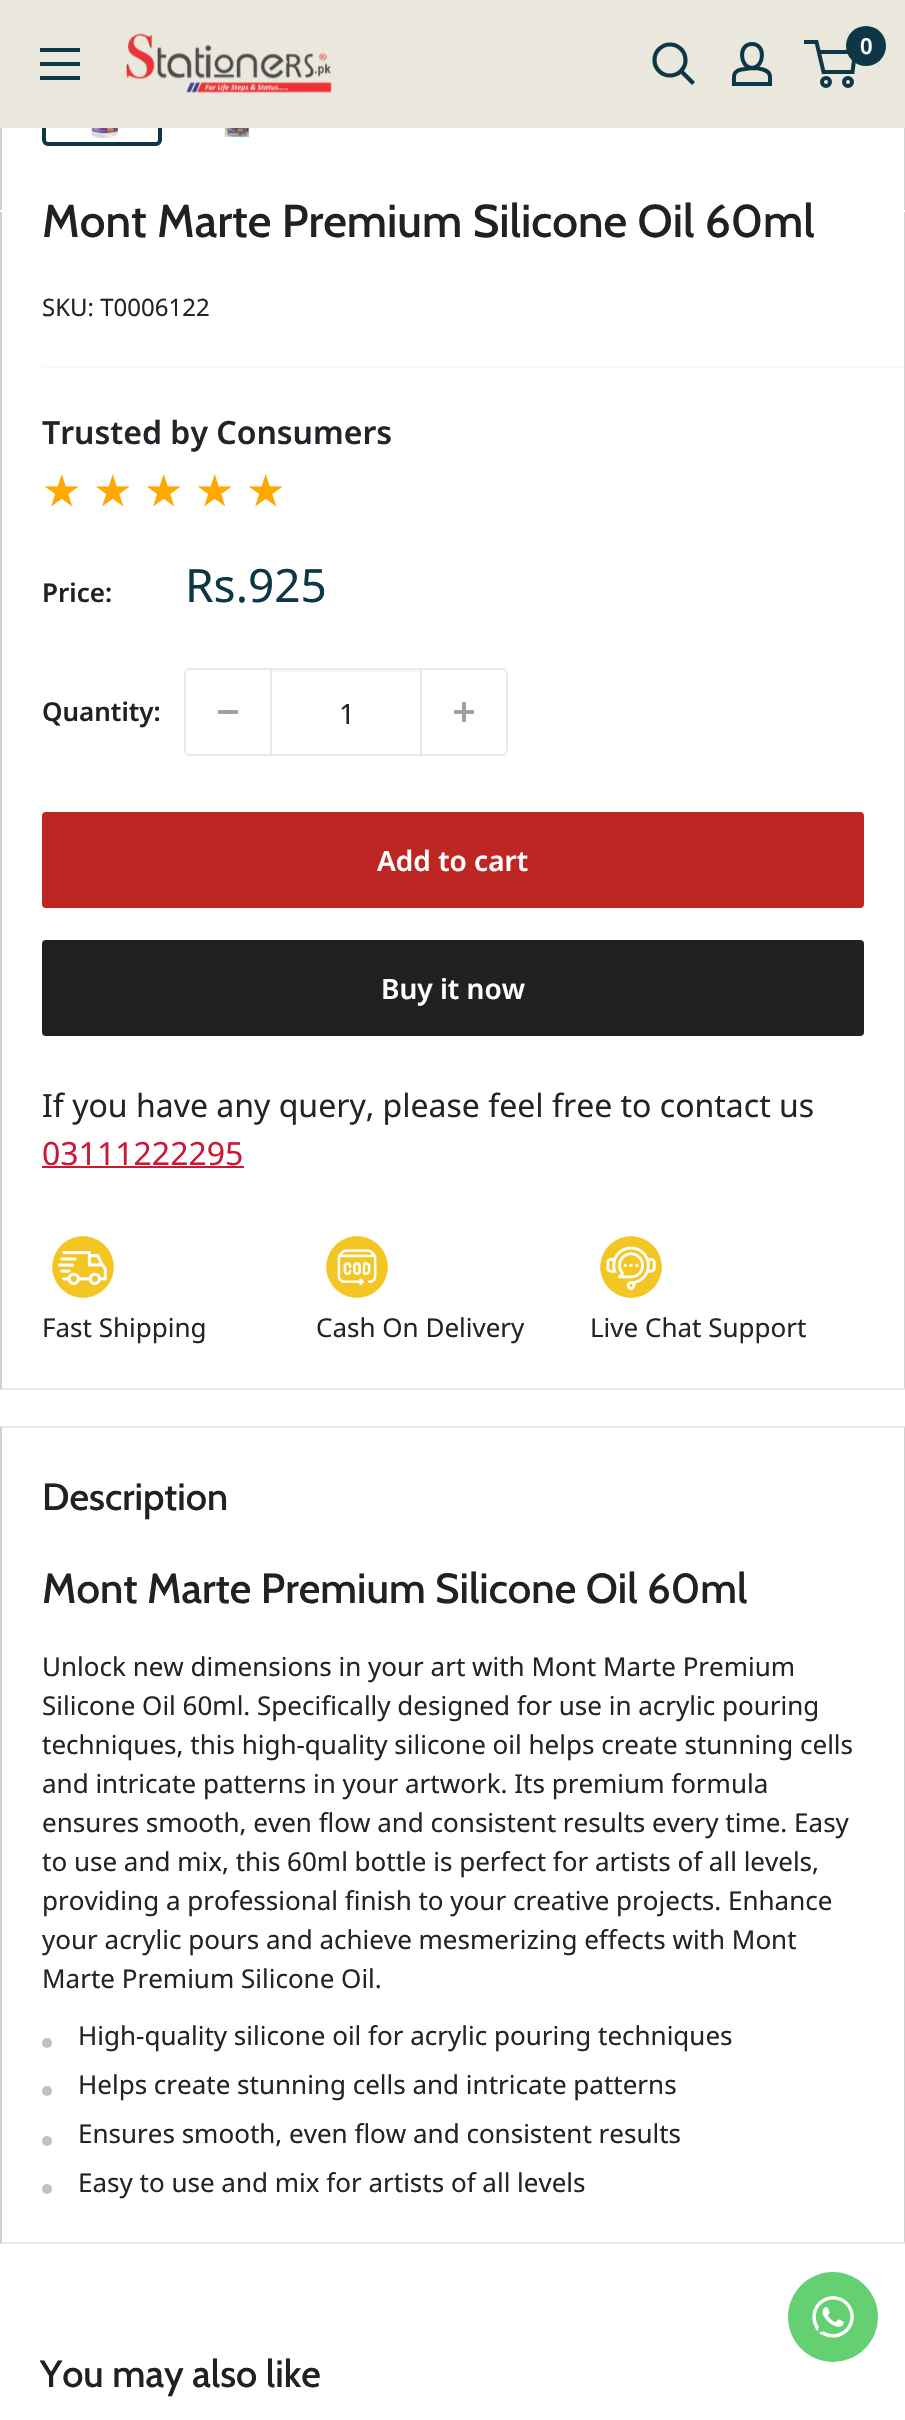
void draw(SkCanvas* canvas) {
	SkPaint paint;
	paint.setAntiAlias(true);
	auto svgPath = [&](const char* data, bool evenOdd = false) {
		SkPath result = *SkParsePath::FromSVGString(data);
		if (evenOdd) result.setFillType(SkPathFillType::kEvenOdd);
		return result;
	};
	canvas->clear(0xffffffff);
	paint.setColor(0xffd2d2d2);
	canvas->drawPath(svgPath("M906-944V212L904 210V-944Z"), paint);
	paint.setColor(0x2e000000);
	canvas->drawPath(svgPath("M0 212V-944H2V210Z"), paint);
	paint.setStroke(true);
	paint.setStrokeWidth(4);
	paint.setColor(0xff0e3746);
	canvas->drawRoundRect(SkRect::MakeXYWH(44, 28, 116, 116), 4, 4, paint);
	paint.setStroke(false);
	paint.setColor(0xffeae8dc);
	canvas->drawRect(SkRect::MakeXYWH(0, 0, 905, 128), paint);
	canvas->drawImageRect(SkImages::DeferredFromEncodedData(SkData::MakeFromFileName("img1.png")), SkRect::MakeXYWH(126, 33, 206, 60), SkSamplingOptions());
	paint.setStroke(true);
	paint.setStrokeWidth(4.2);
	paint.setStrokeCap(SkPaint::kSquare_Cap);
	paint.setColor(0xff0e3746);
	canvas->drawPath(svgPath("M692 82L681.5 71.5"), paint);
	paint.setStrokeCap(SkPaint::kButt_Cap);
	canvas->drawCircle(670, 60, 15.5, paint);
	paint.setStrokeWidth(4);
	canvas->drawPath(svgPath("M752 68C756 68 759.5 68.5 763 69.5C771.5 72 770 76.5 770 84H734C734 76 732.5 71.5 741.5 69.5ZM752 68C740 68 737.5 44 752 44C766.5 44 764 68 752 68Z"), paint);
	canvas->drawCircle(826, 82, 4, paint);
	canvas->drawCircle(848, 82, 4, paint);
	canvas->drawPath(svgPath("M818.5 52H855L852.5 72H823.5L816.5 42H804"), paint);
	paint.setStroke(false);
	canvas->drawCircle(866, 46, 20, paint);
	SkFont f1(fontMgr->matchFamilyStyle("Noto Sans", SkFontStyle(600, SkFontStyle::kNormal_Width, SkFontStyle::kUpright_Slant)), 22);
	f1.setSubpixel(true);
	paint.setColor(0xffffffff);
	canvas->drawString("0", 860, 54, f1, paint);
	paint.setColor(0xff0e3746);
	canvas->drawPath(svgPath("M40 76H80V80H40ZM40 48H80V52H40ZM40 62H80V66H40Z", true), paint);
	canvas->drawImageRect(SkImages::DeferredFromEncodedData(SkData::MakeFromFileName("img2.png")), SkRect::MakeXYWH(90, 128, 30, 10), SkSamplingOptions());
	canvas->drawImageRect(SkImages::DeferredFromEncodedData(SkData::MakeFromFileName("img3.png")), SkRect::MakeXYWH(223, 128, 27, 10), SkSamplingOptions());
	paint.setColor(0xffffffff);
	canvas->drawRect(SkRect::MakeXYWH(0, 210, 905, 2), paint);
	paint.setColor(0xffd2d2d2);
	canvas->drawPath(svgPath("M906 212V1390L904 1388V212Z"), paint);
	paint.setColor(0xffe8e8e8);
	canvas->drawPath(svgPath("M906 1390H0L2 1388H904Z"), paint);
	paint.setColor(0x2e000000);
	canvas->drawPath(svgPath("M0 1390V212H2V1388Z"), paint);
	SkFont f2(fontMgr->matchFamilyStyle("Cabin", SkFontStyle(500, SkFontStyle::kNormal_Width, SkFontStyle::kUpright_Slant)), 46);
	f2.setSubpixel(true);
	paint.setColor(0xff222021);
	canvas->drawString("Mont Marte Premium Silicone Oil 60ml", 42, 237, f2, paint);
	SkFont f3(fontMgr->matchFamilyStyle("Noto Sans", SkFontStyle::Normal()), 24);
	f3.setSubpixel(true);
	paint.setColor(0xff212529);
	canvas->drawString("SKU: T0006122", 42, 316, f3, paint);
	paint.setColor(0xfff9f9f9);
	canvas->drawRect(SkRect::MakeXYWH(42, 366, 862, 2), paint);
	SkFont f4(fontMgr->matchFamilyStyle("Noto Sans", SkFontStyle(600, SkFontStyle::kNormal_Width, SkFontStyle::kUpright_Slant)), 32);
	f4.setSubpixel(true);
	paint.setColor(0xff212529);
	canvas->drawString("Trusted by Consumers", 42, 444, f4, paint);
	SkFont f5(fontMgr->matchFamilyStyle("DejaVu Sans", SkFontStyle::Normal()), 44);
	f5.setSubpixel(true);
	paint.setColor(0xffffa800);
	canvas->drawString("★", 42, 506, f5, paint);
	canvas->drawString("★", 93, 506, f5, paint);
	canvas->drawString("★", 144, 506, f5, paint);
	canvas->drawString("★", 195, 506, f5, paint);
	canvas->drawString("★", 246, 506, f5, paint);
	SkFont f6(fontMgr->matchFamilyStyle("Noto Sans", SkFontStyle(600, SkFontStyle::kNormal_Width, SkFontStyle::kUpright_Slant)), 26);
	f6.setSubpixel(true);
	paint.setColor(0xff222021);
	canvas->drawString("Price:", 42, 602, f6, paint);
	SkFont f7(fontMgr->matchFamilyStyle("Noto Sans", SkFontStyle::Normal()), 46);
	f7.setSubpixel(true);
	paint.setColor(0xff0e3746);
	canvas->drawString("Rs.925", 185, 602, f7, paint);
	paint.setColor(0xff222021);
	canvas->drawString("Quantity:", 42, 721, f6, paint);
	paint.setStroke(true);
	paint.setStrokeWidth(2);
	paint.setColor(0xffe8e8e8);
	canvas->drawRoundRect(SkRect::MakeXYWH(185, 669, 322, 86), 5, 5, paint);
	paint.setStroke(false);
	paint.setColor(0xffa0a0a0);
	canvas->drawRect(SkRect::MakeXYWH(218, 710, 20, 4), paint);
	paint.setColor(0xfff6f6f6);
	canvas->drawRect(SkRect::MakeXYWH(272, 670, 148, 2), paint);
	paint.setColor(0xffe8e8e8);
	canvas->drawRect(SkRect::MakeXYWH(420, 670, 2, 84), paint);
	canvas->drawRect(SkRect::MakeXYWH(270, 670, 2, 84), paint);
	SkFont f8(fontMgr->matchFamilyStyle("Noto Sans", SkFontStyle::Normal()), 28);
	f8.setSubpixel(true);
	paint.setColor(0xff222021);
	canvas->drawString("1", 339, 724, f8, paint);
	canvas->drawImageRect(SkImages::DeferredFromEncodedData(SkData::MakeFromFileName("img4.png")), SkRect::MakeXYWH(454, 702, 20, 20), SkSamplingOptions());
	paint.setColor(0xffbe2623);
	canvas->drawRoundRect(SkRect::MakeXYWH(42, 812, 822, 96), 4, 4, paint);
	SkFont f9(fontMgr->matchFamilyStyle("Noto Sans", SkFontStyle(600, SkFontStyle::kNormal_Width, SkFontStyle::kUpright_Slant)), 28);
	f9.setSubpixel(true);
	paint.setColor(0xffffffff);
	canvas->drawString("Add to cart", 377, 871, f9, paint);
	paint.setColor(0xff222021);
	canvas->drawRoundRect(SkRect::MakeXYWH(42, 940, 822, 96), 4, 4, paint);
	paint.setColor(0xffffffff);
	canvas->drawString("Buy it now", 381, 999, f9, paint);
	SkFont f10(fontMgr->matchFamilyStyle("Noto Sans", SkFontStyle::Normal()), 32);
	f10.setSubpixel(true);
	paint.setColor(0xff212529);
	canvas->drawString("If you have any query, please feel free to contact us", 42, 1117, f10, paint);
	paint.setColor(0xffcb1836);
	canvas->drawString("03111222295", 42, 1165, f10, paint);
	canvas->drawRect(SkRect::MakeXYWH(42, 1166, 202, 2), paint);
	canvas->drawImageRect(SkImages::DeferredFromEncodedData(SkData::MakeFromFileName("img5.png")), SkRect::MakeXYWH(52, 1236, 62, 62), SkSamplingOptions());
	SkFont f11(fontMgr->matchFamilyStyle("Noto Sans", SkFontStyle::Normal()), 26);
	f11.setSubpixel(true);
	paint.setColor(0xff212529);
	canvas->drawString("Fast Shipping", 42, 1337, f11, paint);
	canvas->drawImageRect(SkImages::DeferredFromEncodedData(SkData::MakeFromFileName("img6.png")), SkRect::MakeXYWH(326, 1236, 62, 62), SkSamplingOptions());
	canvas->drawString("Cash On Delivery", 316, 1337, f11, paint);
	canvas->drawImageRect(SkImages::DeferredFromEncodedData(SkData::MakeFromFileName("img7.png")), SkRect::MakeXYWH(600, 1236, 62, 62), SkSamplingOptions());
	canvas->drawString("Live Chat Support", 590, 1337, f11, paint);
	paint.setColor(0xffe8e8e8);
	canvas->drawPath(svgPath("M0 1426H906L904 1428H2Z"), paint);
	paint.setColor(0x2e000000);
	canvas->drawPath(svgPath("M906 1426V2244L904 2242V1428Z"), paint);
	paint.setColor(0xffe8e8e8);
	canvas->drawPath(svgPath("M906 2244H0L2 2242H904Z"), paint);
	paint.setColor(0x2e000000);
	canvas->drawPath(svgPath("M0 2244V1426L2 1428V2242Z"), paint);
	SkFont f12(fontMgr->matchFamilyStyle("Cabin", SkFontStyle(500, SkFontStyle::kNormal_Width, SkFontStyle::kUpright_Slant)), 38);
	f12.setSubpixel(true);
	paint.setColor(0xff222021);
	canvas->drawString("Description", 42, 1510, f12, paint);
	SkFont f13(fontMgr->matchFamilyStyle("Cabin", SkFontStyle(500, SkFontStyle::kNormal_Width, SkFontStyle::kUpright_Slant)), 42);
	f13.setSubpixel(true);
	canvas->drawString("Mont Marte Premium Silicone Oil 60ml", 42, 1603, f13, paint);
	paint.setColor(0xff212529);
	canvas->drawString("Unlock new dimensions in your art with Mont Marte Premium", 42, 1676, f11, paint);
	canvas->drawString("Silicone Oil 60ml. Specifically designed for use in acrylic pouring", 42, 1715, f11, paint);
	canvas->drawString("techniques, this high-quality silicone oil helps create stunning cells", 42, 1754, f11, paint);
	canvas->drawString("and intricate patterns in your artwork. Its premium formula", 42, 1793, f11, paint);
	canvas->drawString("ensures smooth, even flow and consistent results every time. Easy", 42, 1832, f11, paint);
	canvas->drawString("to use and mix, this 60ml bottle is perfect for artists of all levels,", 42, 1871, f11, paint);
	canvas->drawString("providing a professional finish to your creative projects. Enhance", 42, 1910, f11, paint);
	canvas->drawString("your acrylic pours and achieve mesmerizing effects with Mont", 42, 1949, f11, paint);
	canvas->drawString("Marte Premium Silicone Oil.", 42, 1988, f11, paint);
	paint.setColor(0xffc0c0c0);
	canvas->drawCircle(47, 2043, 5, paint);
	paint.setColor(0xff212529);
	canvas->drawString("High-quality silicone oil for acrylic pouring techniques", 78, 2045, f11, paint);
	paint.setColor(0xffc0c0c0);
	canvas->drawCircle(47, 2091, 5, paint);
	paint.setColor(0xff212529);
	canvas->drawString("Helps create stunning cells and intricate patterns", 78, 2094, f11, paint);
	paint.setColor(0xffc0c0c0);
	canvas->drawCircle(47, 2141, 5, paint);
	paint.setColor(0xff212529);
	canvas->drawString("Ensures smooth, even flow and consistent results", 78, 2143, f11, paint);
	paint.setColor(0xffc0c0c0);
	canvas->drawCircle(47, 2189, 5, paint);
	paint.setColor(0xff212529);
	canvas->drawString("Easy to use and mix for artists of all levels", 78, 2192, f11, paint);
	paint.setColor(0xff222021);
	canvas->drawString("You may also like", 40, 2387, f12, paint);
	paint.setColor(0xff65d071);
	canvas->drawCircle(833, 2317, 45, paint);
	canvas->drawImageRect(SkImages::DeferredFromEncodedData(SkData::MakeFromFileName("img8.png")), SkRect::MakeXYWH(812, 2296, 42, 42), SkSamplingOptions());
}
